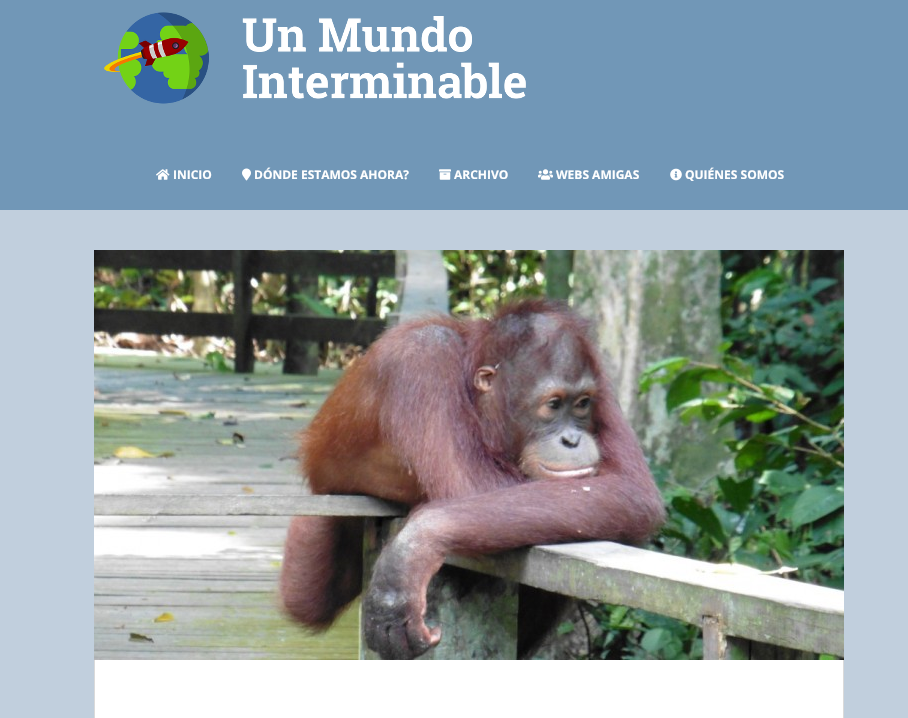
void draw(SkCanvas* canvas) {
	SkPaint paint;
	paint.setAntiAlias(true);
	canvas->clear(0xffc1cfdd);
	paint.setColor(0xff7197b7);
	canvas->drawRect(SkRect::MakeXYWH(0, 0, 908, 210), paint);
	canvas->drawImageRect(SkImages::DeferredFromEncodedData(SkData::MakeFromFileName("img1.png")), SkRect::MakeXYWH(104, 12, 422, 92), SkSamplingOptions());
	canvas->drawImageRect(SkImages::DeferredFromEncodedData(SkData::MakeFromFileName("img2.png")), SkRect::MakeXYWH(156, 169, 14, 11), SkSamplingOptions());
	SkFont f1(fontMgr->matchFamilyStyle("Open Sans", SkFontStyle::Bold()), 12);
	f1.setSubpixel(true);
	paint.setColor(0xffffffff);
	canvas->drawString("INICIO", 173, 179, f1, paint);
	canvas->drawImageRect(SkImages::DeferredFromEncodedData(SkData::MakeFromFileName("img3.png")), SkRect::MakeXYWH(242, 168, 9, 13), SkSamplingOptions());
	canvas->drawString("DÓNDE ESTAMOS AHORA?", 254, 179, f1, paint);
	canvas->drawImageRect(SkImages::DeferredFromEncodedData(SkData::MakeFromFileName("img4.png")), SkRect::MakeXYWH(439, 169, 12, 11), SkSamplingOptions());
	canvas->drawString("ARCHIVO", 454, 179, f1, paint);
	canvas->drawImageRect(SkImages::DeferredFromEncodedData(SkData::MakeFromFileName("img5.png")), SkRect::MakeXYWH(538, 169, 15, 11), SkSamplingOptions());
	canvas->drawString("WEBS AMIGAS", 556, 179, f1, paint);
	canvas->drawImageRect(SkImages::DeferredFromEncodedData(SkData::MakeFromFileName("img6.png")), SkRect::MakeXYWH(670, 168, 12, 13), SkSamplingOptions());
	canvas->drawString("QUIÉNES SOMOS", 685, 179, f1, paint);
	canvas->drawImageRect(SkImages::DeferredFromEncodedData(SkData::MakeFromFileName("img7.png")), SkRect::MakeXYWH(94, 250, 750, 410), SkSamplingOptions());
	canvas->drawRect(SkRect::MakeXYWH(95, 660, 748, 58), paint);
	paint.setColor(0xffdadada);
	canvas->drawRect(SkRect::MakeXYWH(843, 660, 1, 58), paint);
	canvas->drawRect(SkRect::MakeXYWH(94, 660, 1, 58), paint);
}
